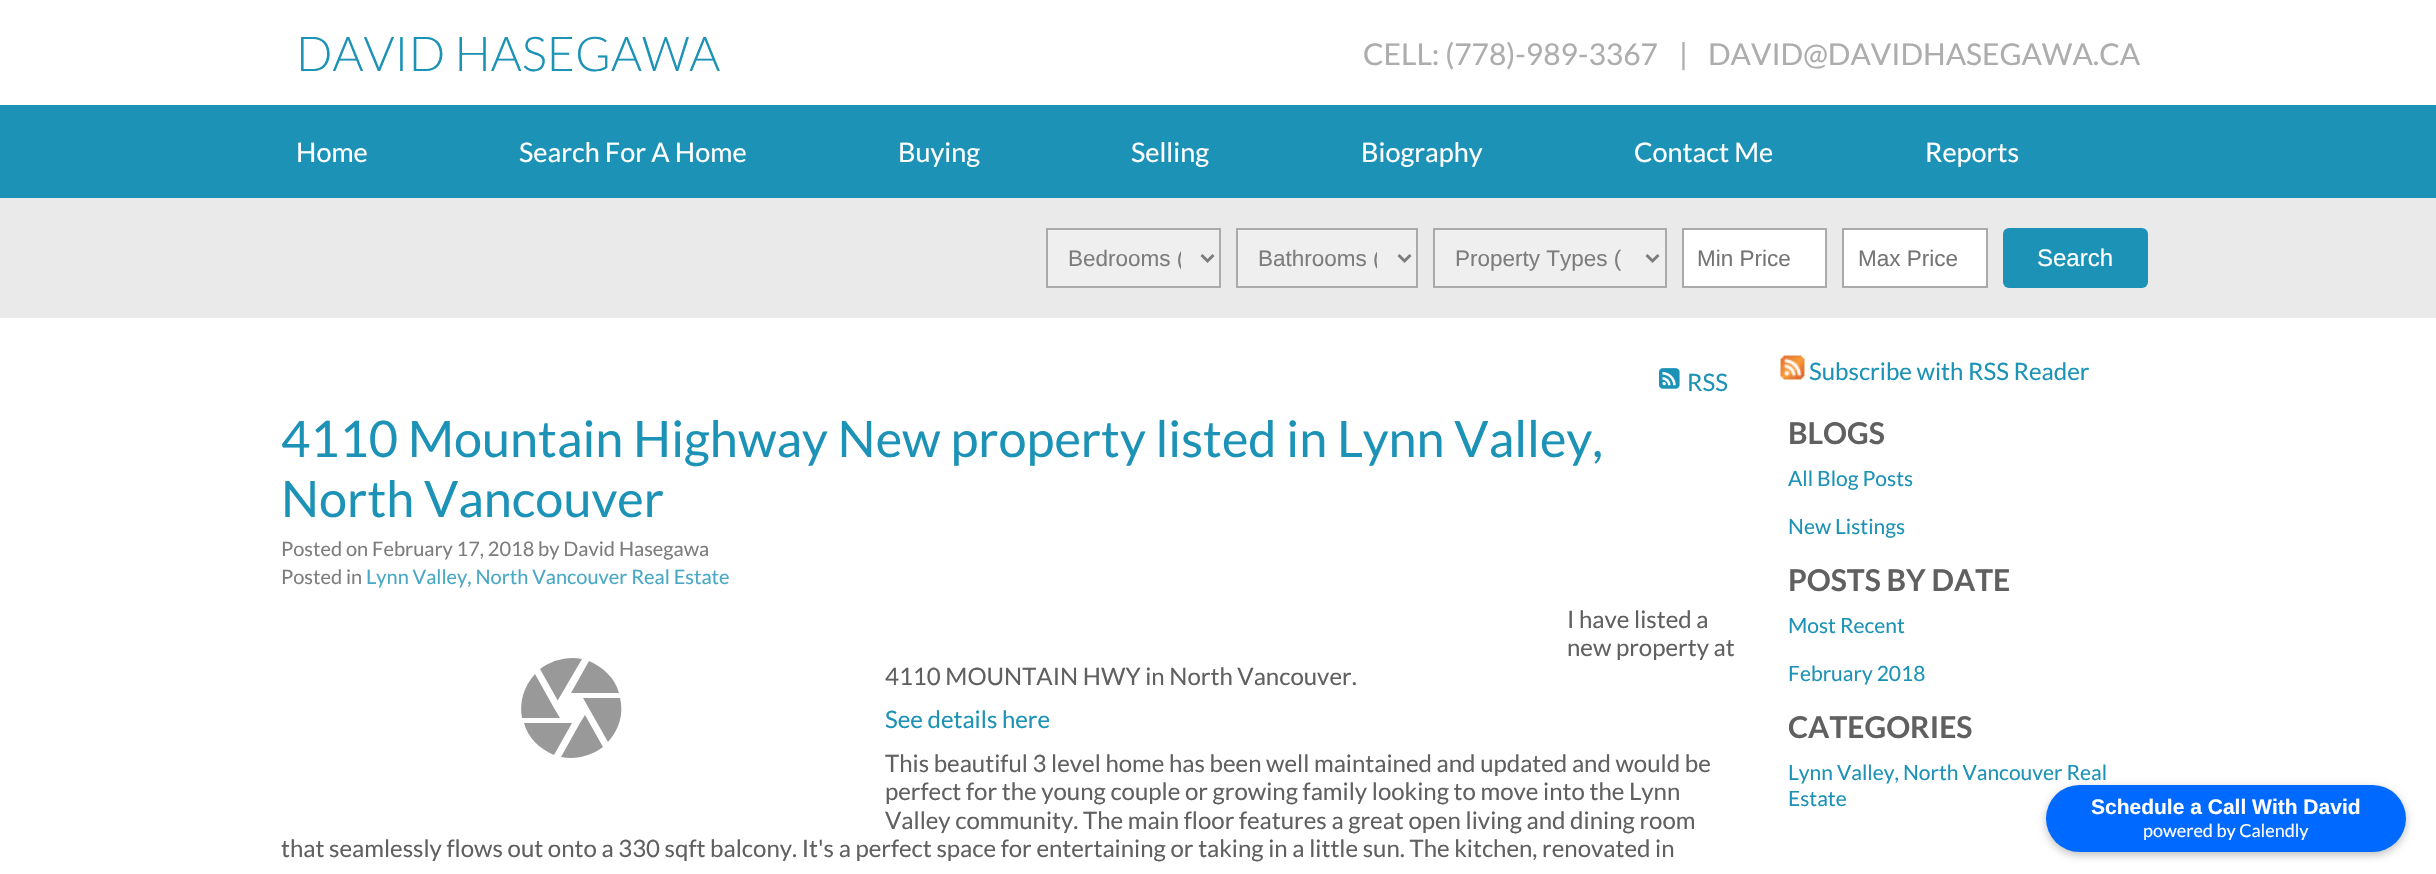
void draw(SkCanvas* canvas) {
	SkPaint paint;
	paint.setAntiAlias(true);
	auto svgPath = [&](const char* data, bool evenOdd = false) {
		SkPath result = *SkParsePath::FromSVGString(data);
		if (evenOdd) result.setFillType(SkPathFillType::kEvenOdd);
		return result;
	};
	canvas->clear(0xffffffff);
	SkFont f1(fontMgr->matchFamilyStyle("Lato", SkFontStyle(300, SkFontStyle::kNormal_Width, SkFontStyle::kUpright_Slant)), 48);
	f1.setSubpixel(true);
	paint.setColor(0xff1b92b6);
	canvas->drawString("DAVID HASEGAWA", 296, 71, f1, paint);
	SkFont f2(fontMgr->matchFamilyStyle("Lato", SkFontStyle::Normal()), 30);
	f2.setSubpixel(true);
	paint.setColor(0xffadadad);
	canvas->drawString("CELL: (778)-989-3367", 1363, 65, f2, paint);
	canvas->drawString("|", 1679, 65, f2, paint);
	canvas->drawString("DAVID@DAVIDHASEGAWA.CA", 1708, 65, f2, paint);
	paint.setColor(0xff1b92b6);
	canvas->drawRect(SkRect::MakeXYWH(0, 105, 2436, 93), paint);
	SkFont f3(fontMgr->matchFamilyStyle("Lato", SkFontStyle::Normal()), 27);
	f3.setSubpixel(true);
	paint.setColor(0xffffffff);
	canvas->drawString("Home", 296, 162, f3, paint);
	canvas->drawString("Search For A Home", 519, 162, f3, paint);
	canvas->drawString("Buying", 898, 162, f3, paint);
	canvas->drawString("Selling", 1131, 162, f3, paint);
	canvas->drawString("Biography", 1361, 162, f3, paint);
	canvas->drawString("Contact Me", 1634, 162, f3, paint);
	canvas->drawString("Reports", 1925, 162, f3, paint);
	paint.setColor(0xffeaeaea);
	canvas->drawRect(SkRect::MakeXYWH(0, 198, 2436, 120), paint);
	paint.setColor(0xffefefef);
	canvas->drawRect(SkRect::MakeXYWH(1047, 229, 173, 58), paint);
	paint.setStroke(true);
	paint.setStrokeWidth(2);
	paint.setColor(0xffaaaaaa);
	canvas->drawRect(SkRect::MakeXYWH(1047, 229, 173, 58), paint);
	paint.setStrokeWidth(3);
	paint.setColor(0xff7d7d7d);
	canvas->drawPath(svgPath("M1201.5 255L1207.5 261L1213.5 255"), paint);
	canvas->save();
	canvas->clipRect(SkRect::MakeXYWH(1068, 245, 113, 28));
	SkFont f4(fontMgr->matchFamilyStyle("Liberation Sans", SkFontStyle::Normal()), 22.5);
	f4.setSubpixel(true);
	paint.setStroke(false);
	canvas->drawString("Bedrooms (", 1068, 266, f4, paint);
	canvas->restore();
	paint.setColor(0xffefefef);
	canvas->drawRect(SkRect::MakeXYWH(1237, 229, 180, 58), paint);
	paint.setStroke(true);
	paint.setStrokeWidth(2);
	paint.setColor(0xffaaaaaa);
	canvas->drawRect(SkRect::MakeXYWH(1237, 229, 180, 58), paint);
	paint.setStrokeWidth(3);
	paint.setColor(0xff7d7d7d);
	canvas->drawPath(svgPath("M1398.5 255L1404.5 261L1410.5 255"), paint);
	canvas->save();
	canvas->clipRect(SkRect::MakeXYWH(1259, 245, 118, 28));
	paint.setStroke(false);
	canvas->drawString("Bathrooms (", 1258, 266, f4, paint);
	canvas->restore();
	paint.setColor(0xffefefef);
	canvas->drawRect(SkRect::MakeXYWH(1434, 229, 232, 58), paint);
	paint.setStroke(true);
	paint.setStrokeWidth(2);
	paint.setColor(0xffaaaaaa);
	canvas->drawRect(SkRect::MakeXYWH(1434, 229, 232, 58), paint);
	paint.setStrokeWidth(3);
	paint.setColor(0xff7d7d7d);
	canvas->drawPath(svgPath("M1646.5 255L1652.5 261L1658.5 255"), paint);
	paint.setStroke(false);
	canvas->drawString("Property Types (", 1455, 266, f4, paint);
	paint.setColor(0xffffffff);
	canvas->drawRect(SkRect::MakeXYWH(1683, 229, 143, 58), paint);
	paint.setStroke(true);
	paint.setStrokeWidth(2);
	paint.setColor(0xffaaaaaa);
	canvas->drawRect(SkRect::MakeXYWH(1683, 229, 143, 58), paint);
	paint.setStroke(false);
	paint.setColor(0xff757575);
	canvas->drawString("Min Price", 1697, 266, f4, paint);
	paint.setColor(0xffffffff);
	canvas->drawRect(SkRect::MakeXYWH(1843, 229, 144, 58), paint);
	paint.setStroke(true);
	paint.setColor(0xffaaaaaa);
	canvas->drawRect(SkRect::MakeXYWH(1843, 229, 144, 58), paint);
	paint.setStroke(false);
	paint.setColor(0xff757575);
	canvas->drawString("Max Price", 1858, 266, f4, paint);
	paint.setColor(0xff1b92b6);
	canvas->drawRoundRect(SkRect::MakeXYWH(2003, 228, 145, 60), 6, 6, paint);
	SkFont f5(fontMgr->matchFamilyStyle("Liberation Sans", SkFontStyle::Normal()), 24);
	f5.setSubpixel(true);
	paint.setColor(0xffffffff);
	canvas->drawString("Search", 2037, 266, f5, paint);
	canvas->drawImageRect(SkImages::DeferredFromEncodedData(SkData::MakeFromFileName("img1.png")), SkRect::MakeXYWH(1659, 368, 21, 21), SkSamplingOptions());
	SkFont f6(fontMgr->matchFamilyStyle("Lato", SkFontStyle::Normal()), 24);
	f6.setSubpixel(true);
	paint.setColor(0xff1b92b6);
	canvas->drawString("RSS", 1687, 391, f6, paint);
	SkFont f7(fontMgr->matchFamilyStyle("Lato", SkFontStyle::Normal()), 50.4);
	f7.setSubpixel(true);
	canvas->drawString("4110 Mountain Highway New property listed in Lynn Valley,", 281, 457, f7, paint);
	canvas->drawString("North Vancouver", 281, 517, f7, paint);
	SkFont f8(fontMgr->matchFamilyStyle("Lato", SkFontStyle::Normal()), 20);
	f8.setSubpixel(true);
	paint.setColor(0xff7d7d7d);
	canvas->drawString("Posted on February 17, 2018", 281, 556, f8, paint);
	canvas->drawString("by David Hasegawa", 538, 556, f8, paint);
	canvas->drawString("Posted in", 281, 584, f8, paint);
	paint.setColor(0xff49a8c5);
	canvas->drawString("Lynn Valley, North Vancouver Real Estate", 366, 584, f8, paint);
	paint.setColor(0xff606060);
	canvas->drawString("I have listed a", 1567, 628, f6, paint);
	canvas->drawString("new property at", 1567, 656, f6, paint);
	canvas->drawString("4110 MOUNTAIN HWY in North Vancouver.", 885, 685, f6, paint);
	paint.setColor(0xff1b92b6);
	canvas->drawString("See details here", 885, 728, f6, paint);
	paint.setColor(0xff606060);
	canvas->drawString("This beautiful 3 level home has been well maintained and updated and would be", 885, 772, f6, paint);
	canvas->drawString("perfect for the young couple or growing family looking to move into the Lynn", 885, 800, f6, paint);
	canvas->drawString("Valley community. The main floor features a great open living and dining room", 885, 829, f6, paint);
	canvas->drawString("that seamlessly flows out onto a 330 sqft balcony. It's a perfect space for entertaining or taking in a little sun. The kitchen, renovated in", 281, 857, f6, paint);
	paint.setColor(0xff999999);
	canvas->drawPath(svgPath("M580 723L561 757C576 760 591 756 603 747L585 715M524 723C528 738 540 749 554 755L572 723M554 708L535 674C524 686 519 702 522 718H560M620 698H583L608 742C619 730 624 714 620 698M619 693C615 678 603 667 589 661L571 693M558 700L582 659C568 656 552 660 540 669L558 701Z"), paint);
	canvas->drawImageRect(SkImages::DeferredFromEncodedData(SkData::MakeFromFileName("img2.png")), SkRect::MakeXYWH(1780, 355, 25, 25), SkSamplingOptions());
	paint.setColor(0xff1b92b6);
	canvas->drawString("Subscribe with RSS Reader", 1809, 380, f6, paint);
	SkFont f9(fontMgr->matchFamilyStyle("Lato", SkFontStyle::Bold()), 30);
	f9.setSubpixel(true);
	paint.setColor(0xff606060);
	canvas->drawString("BLOGS", 1788, 444, f9, paint);
	SkFont f10(fontMgr->matchFamilyStyle("Lato", SkFontStyle::Normal()), 21);
	f10.setSubpixel(true);
	paint.setColor(0xff1b92b6);
	canvas->drawString("All Blog Posts", 1788, 486, f10, paint);
	canvas->drawString("New Listings", 1788, 534, f10, paint);
	paint.setColor(0xff606060);
	canvas->drawString("POSTS BY DATE", 1788, 591, f9, paint);
	paint.setColor(0xff1b92b6);
	canvas->drawString("Most Recent", 1788, 633, f10, paint);
	canvas->drawString("February 2018", 1788, 681, f10, paint);
	paint.setColor(0xff606060);
	canvas->drawString("CATEGORIES", 1788, 738, f9, paint);
	paint.setColor(0xff1b92b6);
	canvas->drawString("Lynn Valley, North Vancouver Real", 1788, 780, f10, paint);
	canvas->drawString("Estate", 1788, 806, f10, paint);
	paint.setColor(0x40000000);
	paint.setMaskFilter(SkMaskFilter::MakeBlur(kNormal_SkBlurStyle, 4));
	canvas->drawRoundRect(SkRect::MakeXYWH(2046, 788, 360, 67), 33.5, 33.5, paint);
	paint.setMaskFilter(nullptr);
	paint.setColor(0xff0069ff);
	canvas->drawRoundRect(SkRect::MakeXYWH(2046, 785, 360, 67), 33.5, 33.5, paint);
	SkFont f11(fontMgr->matchFamilyStyle("Liberation Sans", SkFontStyle::Bold()), 21);
	f11.setSubpixel(true);
	paint.setColor(0xffffffff);
	canvas->drawString("Schedule a Call With David", 2091, 814, f11, paint);
	SkFont f12(fontMgr->matchFamilyStyle("Lato", SkFontStyle::Normal()), 18);
	f12.setSubpixel(true);
	canvas->drawString("powered by Calendly", 2143, 837, f12, paint);
}
